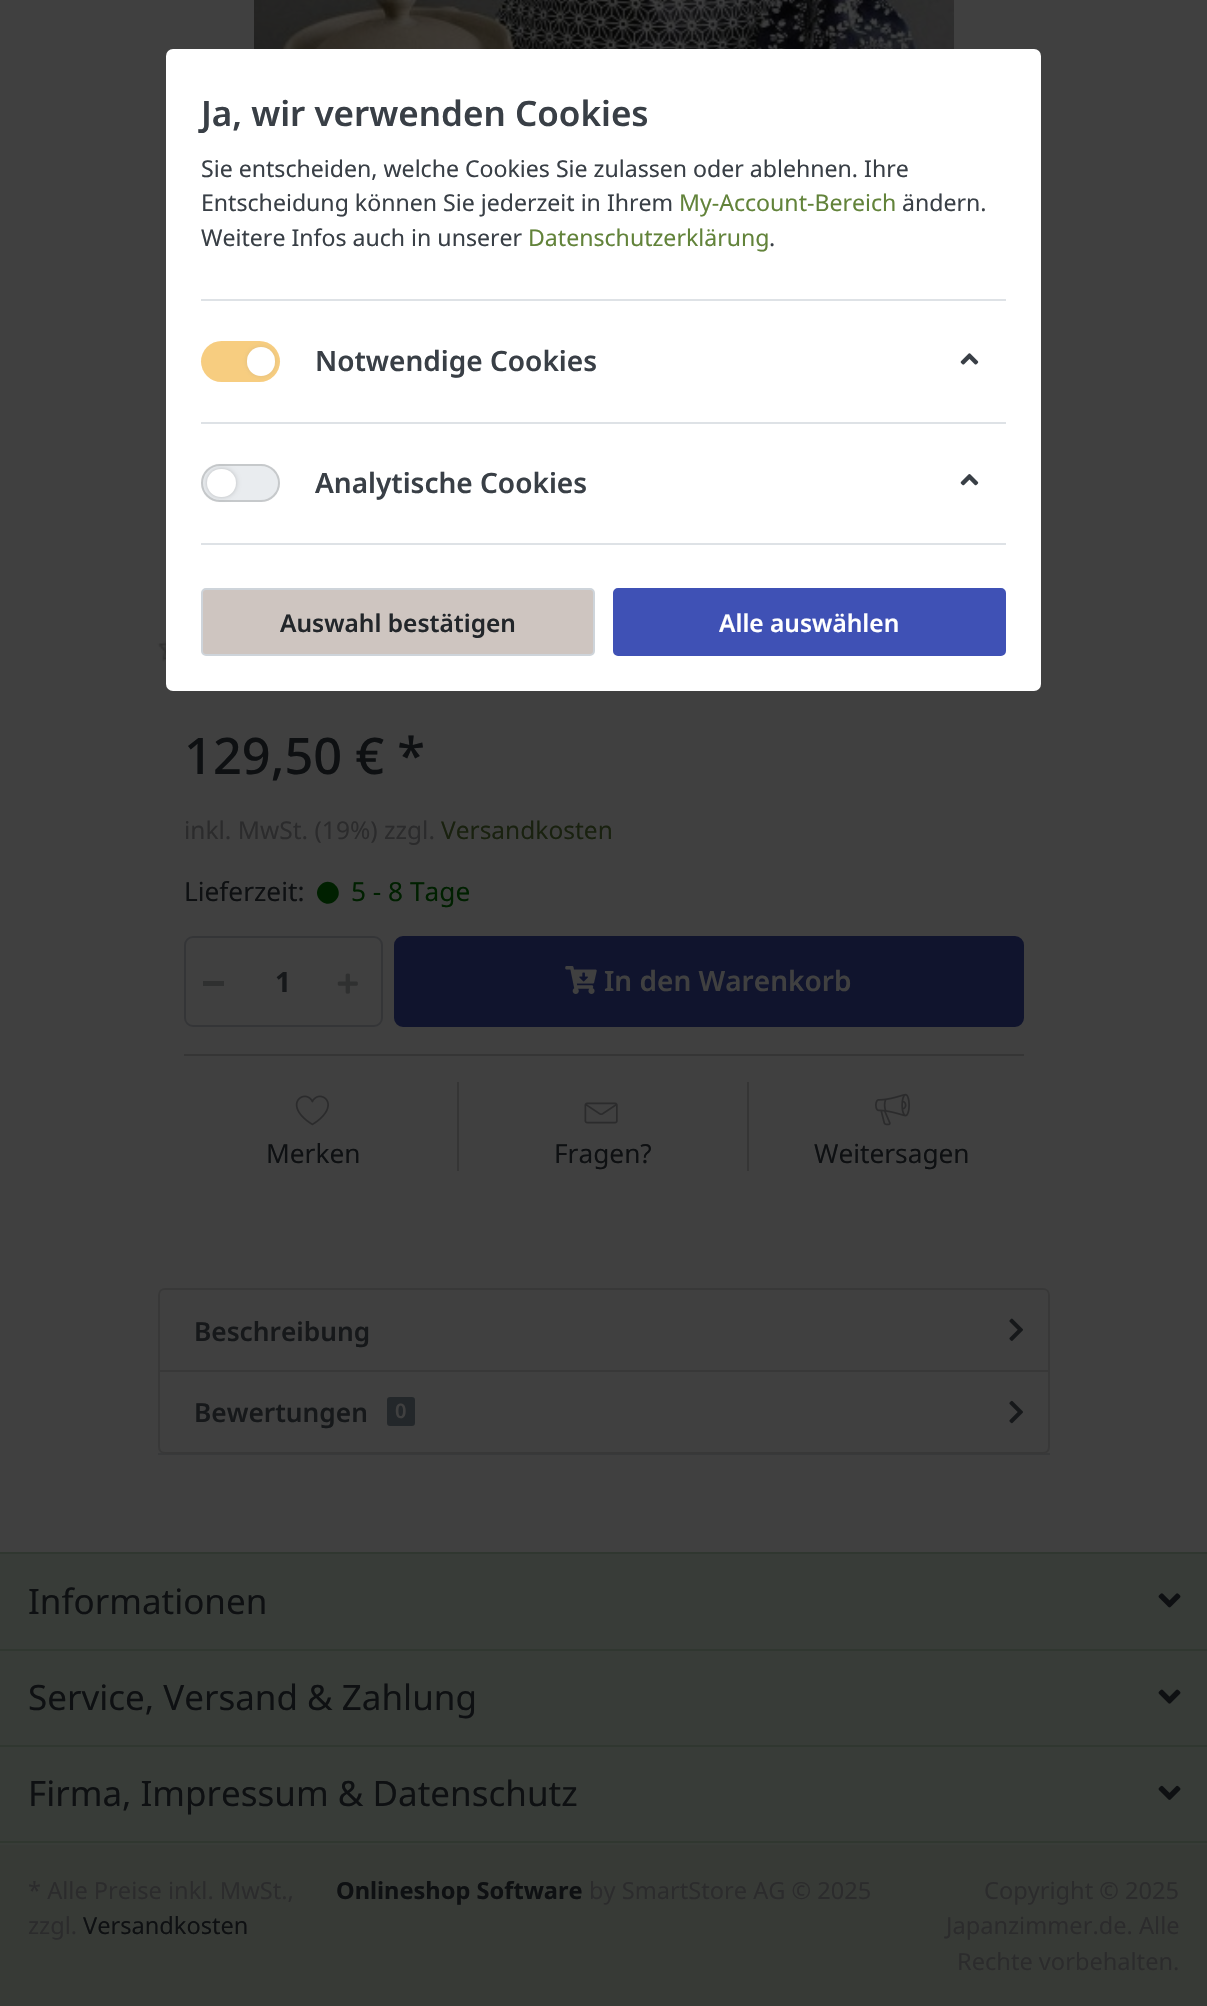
void draw(SkCanvas* canvas) {
	SkPaint paint;
	paint.setAntiAlias(true);
	auto svgPath = [&](const char* data, bool evenOdd = false) {
		SkPath result = *SkParsePath::FromSVGString(data);
		if (evenOdd) result.setFillType(SkPathFillType::kEvenOdd);
		return result;
	};
	canvas->clear(0xff404040);
	paint.setColor(0xffffffff);
	canvas->drawRoundRect(SkRect::MakeXYWH(166, 49, 875, 642), 7, 7, paint);
	SkFont f1(fontMgr->matchFamilyStyle("Noto Sans", SkFontStyle(600, SkFontStyle::kNormal_Width, SkFontStyle::kUpright_Slant)), 35);
	f1.setSubpixel(true);
	paint.setColor(0xff393f46);
	canvas->drawString("Ja, wir verwenden Cookies", 201, 126, f1, paint);
	SkFont f2(fontMgr->matchFamilyStyle("Noto Sans", SkFontStyle::Normal()), 23.1);
	f2.setSubpixel(true);
	canvas->drawString("Sie entscheiden, welche Cookies Sie zulassen oder ablehnen. Ihre", 201, 177, f2, paint);
	canvas->drawString("Entscheidung können Sie jederzeit in Ihrem", 201, 211, f2, paint);
	paint.setColor(0xff62833a);
	canvas->drawString("My-Account-Bereich", 679, 211, f2, paint);
	paint.setColor(0xff393f46);
	canvas->drawString("ändern.", 902, 211, f2, paint);
	canvas->drawString("Weitere Infos auch in unserer", 201, 246, f2, paint);
	paint.setColor(0xff62833a);
	canvas->drawString("Datenschutzerklärung", 528, 246, f2, paint);
	paint.setColor(0xff393f46);
	canvas->drawString(".", 769, 246, f2, paint);
	paint.setColor(0xffdee2e6);
	canvas->drawRect(SkRect::MakeXYWH(201, 299, 805, 2), paint);
	canvas->drawRect(SkRect::MakeXYWH(201, 422, 805, 2), paint);
	paint.setColor(0xfff7cd80);
	canvas->drawRoundRect(SkRect::MakeXYWH(201, 341, 79, 41), 20.5, 20.5, paint);
	paint.setColor(0x33808080);
	paint.setMaskFilter(SkMaskFilter::MakeBlur(kNormal_SkBlurStyle, 2.5));
	canvas->drawRoundRect(SkRect::MakeXYWH(247, 347, 28, 29), 14, 14, paint);
	paint.setMaskFilter(nullptr);
	paint.setColor(0xffffffff);
	canvas->drawRoundRect(SkRect::MakeXYWH(247, 347, 28, 29), 14, 14, paint);
	SkFont f3(fontMgr->matchFamilyStyle("Noto Sans", SkFontStyle(600, SkFontStyle::kNormal_Width, SkFontStyle::kUpright_Slant)), 28);
	f3.setSubpixel(true);
	paint.setColor(0xff393f46);
	canvas->drawString("Notwendige Cookies", 315, 371, f3, paint);
	canvas->drawImageRect(SkImages::DeferredFromEncodedData(SkData::MakeFromFileName("img1.png")), SkRect::MakeXYWH(960, 353, 19, 12), SkSamplingOptions());
	paint.setColor(0xffdee2e6);
	canvas->drawRect(SkRect::MakeXYWH(201, 543, 805, 2), paint);
	paint.setColor(0xffe9ecef);
	canvas->drawRoundRect(SkRect::MakeXYWH(201, 464, 79, 38), 19, 19, paint);
	paint.setStroke(true);
	paint.setStrokeWidth(2);
	paint.setColor(0x26000000);
	canvas->drawRoundRect(SkRect::MakeXYWH(202, 465, 77, 36), 18, 18, paint);
	paint.setStroke(false);
	paint.setColor(0x33000000);
	paint.setMaskFilter(SkMaskFilter::MakeBlur(kNormal_SkBlurStyle, 2.5));
	canvas->drawRoundRect(SkRect::MakeXYWH(207, 469, 29, 28), 14, 14, paint);
	paint.setMaskFilter(nullptr);
	paint.setColor(0xffffffff);
	canvas->drawRoundRect(SkRect::MakeXYWH(207, 469, 29, 28), 14, 14, paint);
	paint.setColor(0xff393f46);
	canvas->drawString("Analytische Cookies", 315, 493, f3, paint);
	canvas->drawImageRect(SkImages::DeferredFromEncodedData(SkData::MakeFromFileName("img2.png")), SkRect::MakeXYWH(960, 474, 19, 12), SkSamplingOptions());
	paint.setColor(0xffcec5c0);
	canvas->drawRoundRect(SkRect::MakeXYWH(202, 589, 392, 66), 4, 4, paint);
	paint.setStroke(true);
	paint.setColor(0xffced4da);
	canvas->drawRoundRect(SkRect::MakeXYWH(202, 589, 392, 66), 4, 4, paint);
	SkFont f4(fontMgr->matchFamilyStyle("Noto Sans", SkFontStyle(600, SkFontStyle::kNormal_Width, SkFontStyle::kUpright_Slant)), 24.5);
	f4.setSubpixel(true);
	paint.setStroke(false);
	paint.setColor(0xff22262a);
	canvas->drawString("Auswahl bestätigen", 280, 632, f4, paint);
	paint.setColor(0xff3f51b5);
	canvas->drawRoundRect(SkRect::MakeXYWH(614, 589, 391, 66), 4, 4, paint);
	paint.setStroke(true);
	canvas->drawRoundRect(SkRect::MakeXYWH(614, 589, 391, 66), 4, 4, paint);
	paint.setStroke(false);
	paint.setColor(0xffffffff);
	canvas->drawString("Alle auswählen", 719, 632, f4, paint);
	canvas->drawImageRect(SkImages::DeferredFromEncodedData(SkData::MakeFromFileName("img3.png")), SkRect::MakeXYWH(254, 0, 700, 49), SkSamplingOptions());
	canvas->drawImageRect(SkImages::DeferredFromEncodedData(SkData::MakeFromFileName("img4.png")), SkRect::MakeXYWH(157, 641, 9, 21), SkSamplingOptions());
	SkFont f5(fontMgr->matchFamilyStyle("Noto Sans", SkFontStyle(500, SkFontStyle::kNormal_Width, SkFontStyle::kUpright_Slant)), 50.5);
	f5.setSubpixel(true);
	paint.setColor(0xff0e1012);
	canvas->drawString("129,50 € *", 184, 774, f5, paint);
	SkFont f6(fontMgr->matchFamilyStyle("Noto Sans", SkFontStyle::Normal()), 24.5);
	f6.setSubpixel(true);
	paint.setColor(0xff2b2b2c);
	canvas->drawString("inkl. MwSt. (19%) zzgl.", 184, 839, f6, paint);
	paint.setColor(0xff19210f);
	canvas->drawString("Versandkosten", 441, 839, f6, paint);
	SkFont f7(fontMgr->matchFamilyStyle("Noto Sans", SkFontStyle::Normal()), 26.25);
	f7.setSubpixel(true);
	paint.setColor(0xff0e1012);
	canvas->drawString("Lieferzeit:", 184, 901, f7, paint);
	paint.setColor(0xff002000);
	canvas->drawPath(svgPath("M320.5 885C330.5 875 345.5 890.5 335.5 900.5C325.5 910.5 310 895.5 320.5 885Z"), paint);
	canvas->drawString("5 - 8 Tage", 351, 901, f7, paint);
	paint.setStroke(true);
	paint.setColor(0xff343537);
	canvas->drawRoundRect(SkRect::MakeXYWH(185, 937, 197, 89), 8, 8, paint);
	paint.setStroke(false);
	paint.setColor(0xff2f3030);
	canvas->drawRect(SkRect::MakeXYWH(203, 981, 21, 5), paint);
	SkFont f8(fontMgr->matchFamilyStyle("Noto Sans", SkFontStyle::Bold()), 28);
	f8.setSubpixel(true);
	paint.setColor(0xff16181a);
	canvas->drawString("1", 275, 992, f8, paint);
	canvas->drawImageRect(SkImages::DeferredFromEncodedData(SkData::MakeFromFileName("img5.png")), SkRect::MakeXYWH(337, 973, 21, 21), SkSamplingOptions());
	paint.setColor(0xff10142d);
	canvas->drawRoundRect(SkRect::MakeXYWH(395, 937, 628, 89), 8, 8, paint);
	paint.setStroke(true);
	canvas->drawRoundRect(SkRect::MakeXYWH(395, 937, 628, 89), 8, 8, paint);
	canvas->drawImageRect(SkImages::DeferredFromEncodedData(SkData::MakeFromFileName("img6.png")), SkRect::MakeXYWH(565, 966, 32, 28), SkSamplingOptions());
	paint.setStroke(false);
	paint.setColor(0xff404040);
	canvas->drawString("In den Warenkorb", 604, 991, f3, paint);
	paint.setColor(0xff353535);
	canvas->drawRect(SkRect::MakeXYWH(184, 1054, 840, 2), paint);
	canvas->drawRect(SkRect::MakeXYWH(457, 1082, 2, 89), paint);
	canvas->drawImageRect(SkImages::DeferredFromEncodedData(SkData::MakeFromFileName("img7.png")), SkRect::MakeXYWH(295, 1095, 34, 31), SkSamplingOptions());
	paint.setColor(0xff0e1012);
	canvas->drawString("Merken", 266, 1163, f7, paint);
	paint.setColor(0xff353535);
	canvas->drawRect(SkRect::MakeXYWH(747, 1082, 2, 89), paint);
	canvas->drawImageRect(SkImages::DeferredFromEncodedData(SkData::MakeFromFileName("img8.png")), SkRect::MakeXYWH(584, 1102, 34, 22), SkSamplingOptions());
	paint.setColor(0xff0e1012);
	canvas->drawString("Fragen?", 554, 1163, f7, paint);
	canvas->drawImageRect(SkImages::DeferredFromEncodedData(SkData::MakeFromFileName("img9.png")), SkRect::MakeXYWH(875, 1093, 35, 33), SkSamplingOptions());
	canvas->drawString("Weitersagen", 814, 1163, f7, paint);
	paint.setColor(0xff38393a);
	canvas->drawRect(SkRect::MakeXYWH(158, 1453, 892, 2), paint);
	paint.setStroke(true);
	paint.setColor(0xff383838);
	canvas->drawPath(svgPath("M165 1289H1043C1046.5 1289 1049 1291.5 1049 1295V1373H159V1295C159 1291.5 161.5 1289 165 1289Z"), paint);
	SkFont f9(fontMgr->matchFamilyStyle("Noto Sans", SkFontStyle(600, SkFontStyle::kNormal_Width, SkFontStyle::kUpright_Slant)), 26.25);
	f9.setSubpixel(true);
	paint.setStroke(false);
	paint.setColor(0xff16181a);
	canvas->drawString("Beschreibung", 194, 1341, f9, paint);
	canvas->drawImageRect(SkImages::DeferredFromEncodedData(SkData::MakeFromFileName("img10.png")), SkRect::MakeXYWH(1009, 1318, 14, 23), SkSamplingOptions());
	paint.setColor(0xff404040);
	canvas->drawPath(svgPath("M158 1370H1050V1447C1050 1451 1047 1454 1043 1454H165C161 1454 158 1451 158 1447Z"), paint);
	paint.setStroke(true);
	paint.setColor(0x1f000000);
	canvas->drawPath(svgPath("M159 1371H1049V1447C1049 1450.5 1046.5 1453 1043 1453H165C161.5 1453 159 1450.5 159 1447Z"), paint);
	paint.setStroke(false);
	paint.setColor(0xff16181a);
	canvas->drawString("Bewertungen", 194, 1422, f9, paint);
	paint.setColor(0xff23272a);
	canvas->drawRoundRect(SkRect::MakeXYWH(386, 1396, 30, 31), 4, 4, paint);
	paint.setStroke(true);
	paint.setColor(0xff404040);
	canvas->drawRoundRect(SkRect::MakeXYWH(386, 1396, 30, 31), 4, 4, paint);
	SkFont f10(fontMgr->matchFamilyStyle("Noto Sans", SkFontStyle(600, SkFontStyle::kNormal_Width, SkFontStyle::kUpright_Slant)), 20);
	f10.setSubpixel(true);
	paint.setStroke(false);
	canvas->drawString("0", 395, 1418, f10, paint);
	canvas->drawImageRect(SkImages::DeferredFromEncodedData(SkData::MakeFromFileName("img11.png")), SkRect::MakeXYWH(1009, 1400, 14, 24), SkSamplingOptions());
	paint.setColor(0xff383c38);
	canvas->drawRect(SkRect::MakeXYWH(0, 1554, 1207, 291), paint);
	paint.setColor(0xff303730);
	canvas->drawRect(SkRect::MakeXYWH(0, 1552, 1207, 2), paint);
	canvas->drawRect(SkRect::MakeXYWH(0, 1649, 1207, 2), paint);
	SkFont f11(fontMgr->matchFamilyStyle("Noto Sans", SkFontStyle::Normal()), 35);
	f11.setSubpixel(true);
	paint.setColor(0xff0e1012);
	canvas->drawString("Informationen", 28, 1614, f11, paint);
	canvas->drawImageRect(SkImages::DeferredFromEncodedData(SkData::MakeFromFileName("img12.png")), SkRect::MakeXYWH(1158, 1593, 23, 15), SkSamplingOptions());
	paint.setColor(0xff303730);
	canvas->drawRect(SkRect::MakeXYWH(0, 1745, 1207, 2), paint);
	paint.setColor(0xff0e1012);
	canvas->drawString("Service, Versand & Zahlung", 28, 1710, f11, paint);
	canvas->drawImageRect(SkImages::DeferredFromEncodedData(SkData::MakeFromFileName("img13.png")), SkRect::MakeXYWH(1158, 1689, 23, 15), SkSamplingOptions());
	paint.setColor(0xff303730);
	canvas->drawRect(SkRect::MakeXYWH(0, 1841, 1207, 2), paint);
	paint.setColor(0xff0e1012);
	canvas->drawString("Firma, Impressum & Datenschutz", 28, 1806, f11, paint);
	canvas->drawImageRect(SkImages::DeferredFromEncodedData(SkData::MakeFromFileName("img14.png")), SkRect::MakeXYWH(1158, 1785, 23, 15), SkSamplingOptions());
	paint.setColor(0xff373a36);
	canvas->drawRect(SkRect::MakeXYWH(0, 1845, 1207, 161), paint);
	SkFont f12(fontMgr->matchFamilyStyle("Noto Sans", SkFontStyle::Normal()), 23.6);
	f12.setSubpixel(true);
	paint.setColor(0xff2b2b2c);
	canvas->drawString("* Alle Preise inkl. MwSt.,", 28, 1899, f12, paint);
	canvas->drawString("zzgl.", 28, 1934, f12, paint);
	paint.setColor(0xff0e1012);
	canvas->drawString("Versandkosten", 83, 1934, f12, paint);
	SkFont f13(fontMgr->matchFamilyStyle("Noto Sans", SkFontStyle::Bold()), 23.6);
	f13.setSubpixel(true);
	canvas->drawString("Onlineshop Software", 336, 1899, f13, paint);
	paint.setColor(0xff2b2b2c);
	canvas->drawString("by SmartStore AG © 2025", 589, 1899, f12, paint);
	canvas->drawString("Copyright © 2025", 984, 1899, f12, paint);
	canvas->drawString("Japanzimmer.de. Alle", 946, 1934, f12, paint);
	canvas->drawString("Rechte vorbehalten.", 957, 1970, f12, paint);
}
